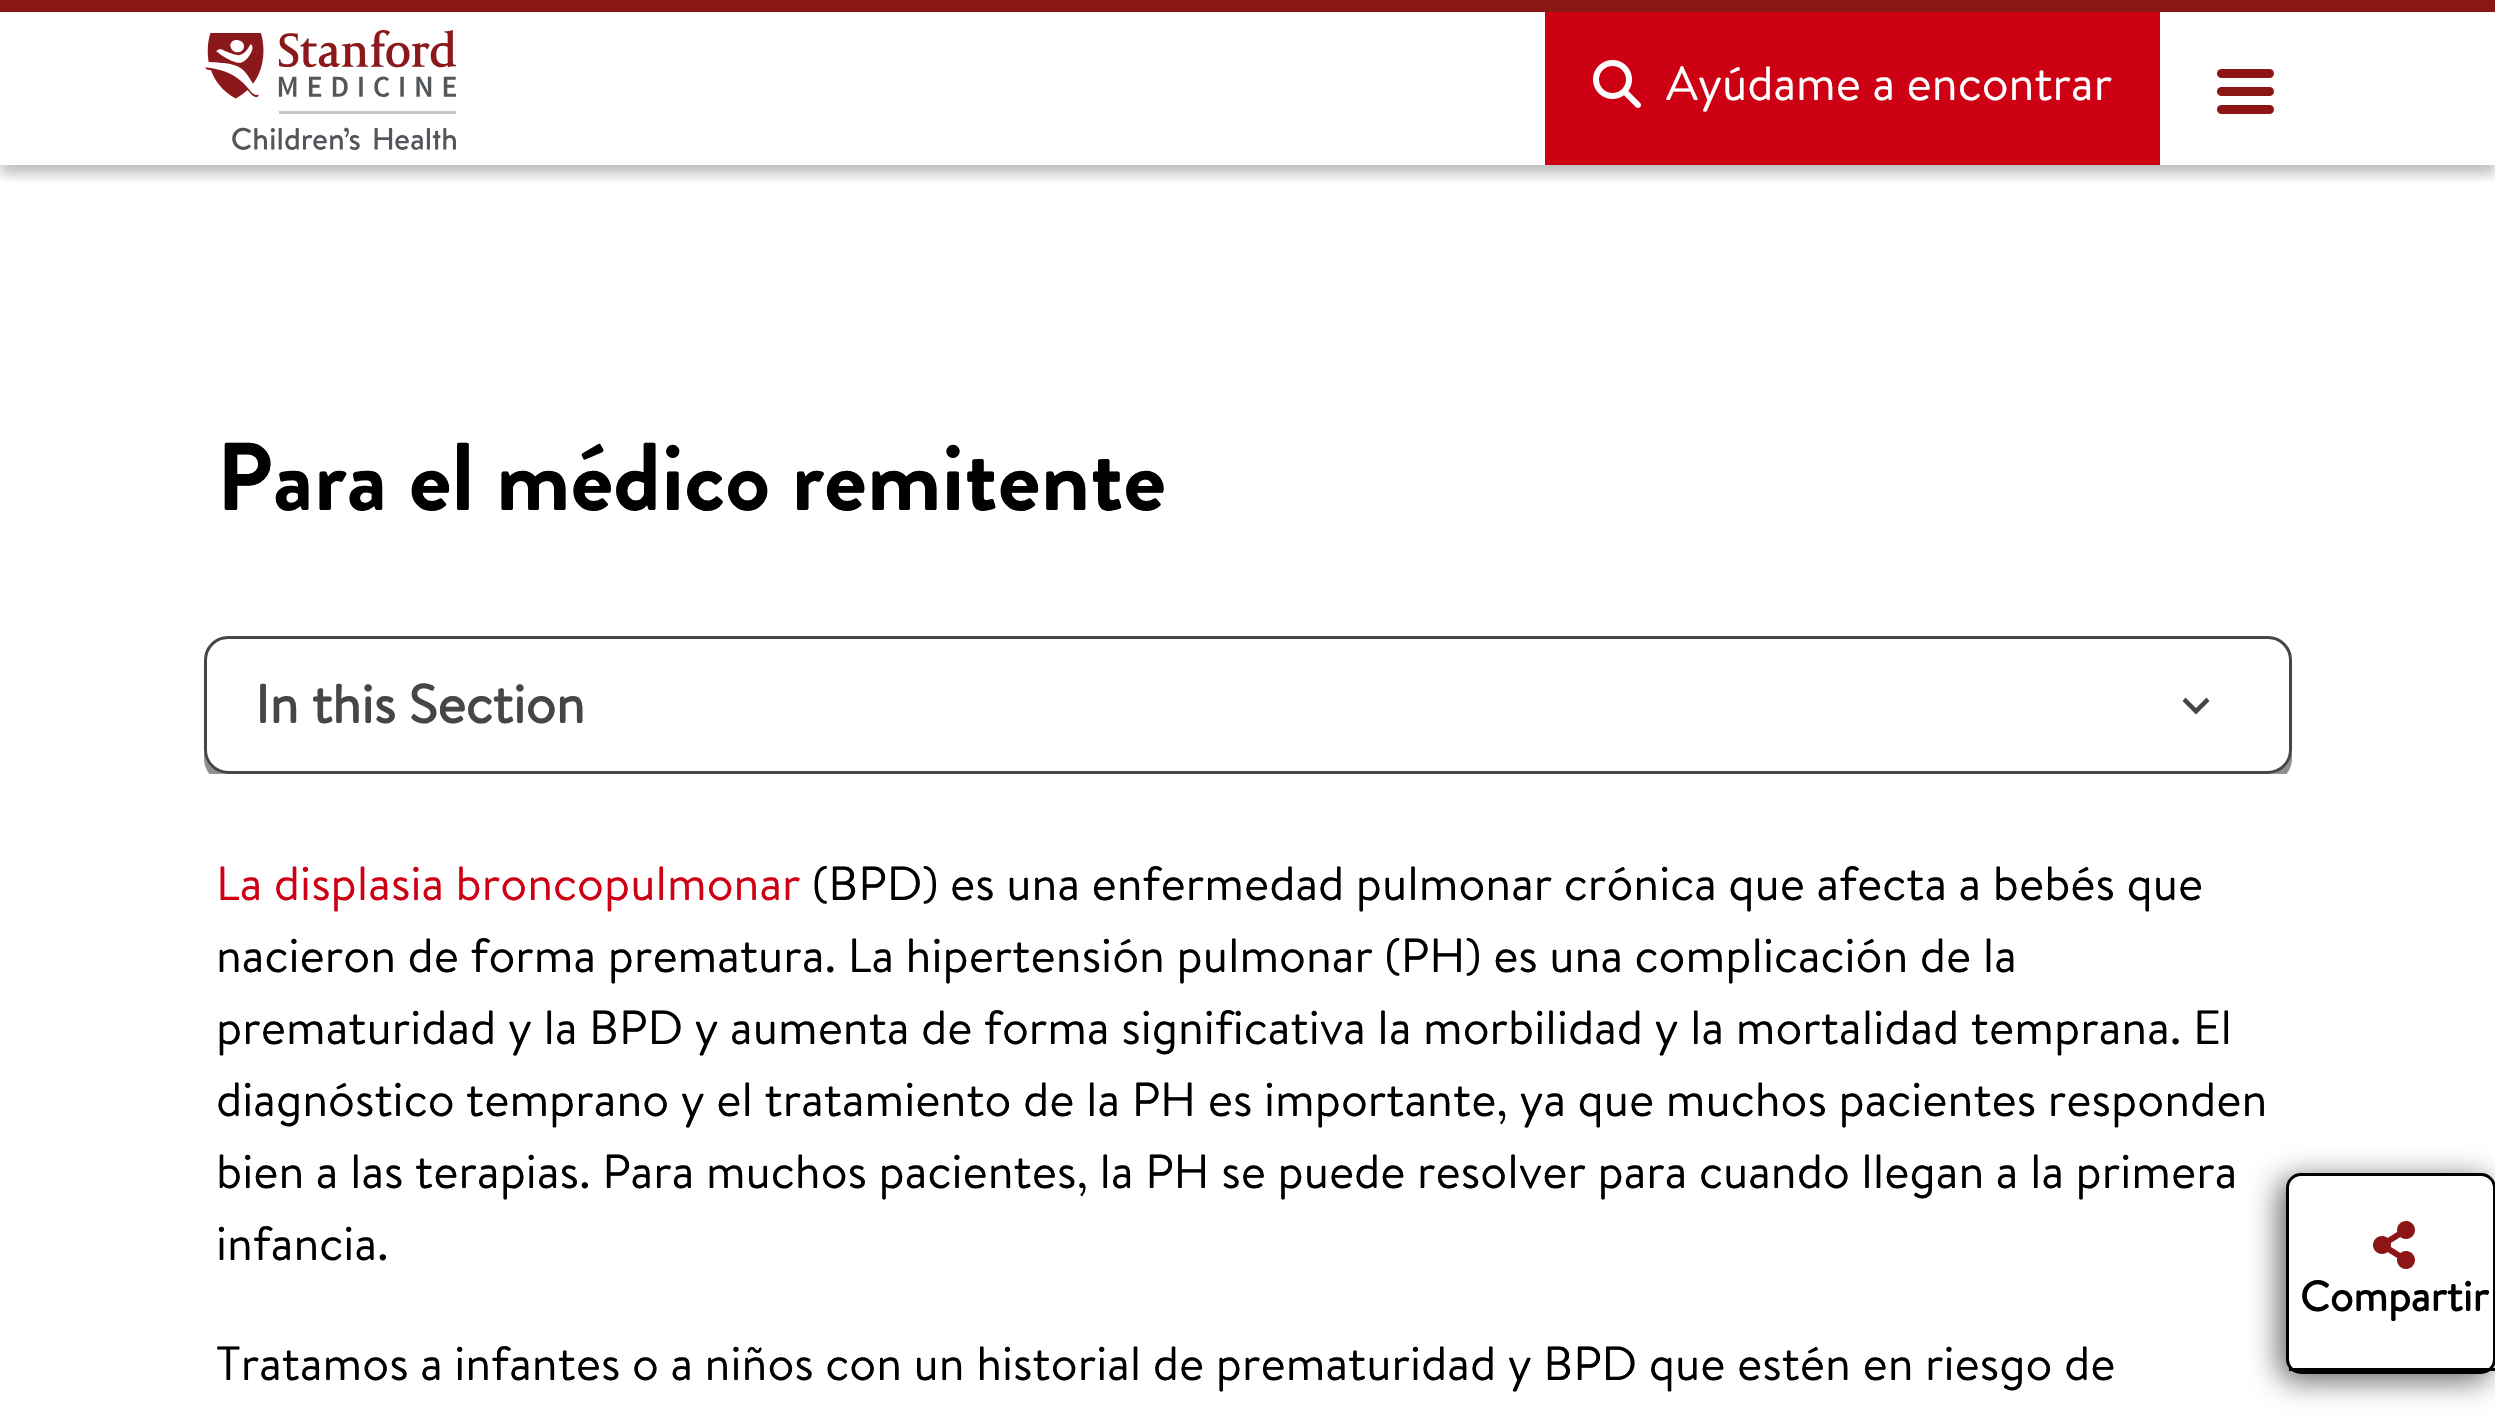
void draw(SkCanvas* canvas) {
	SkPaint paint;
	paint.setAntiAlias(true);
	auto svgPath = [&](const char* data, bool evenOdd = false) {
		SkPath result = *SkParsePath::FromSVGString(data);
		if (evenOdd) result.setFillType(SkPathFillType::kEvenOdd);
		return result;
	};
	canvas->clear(0xffffffff);
	canvas->save();
	canvas->clipRect(SkRect::MakeXYWH(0, 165, 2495, 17));
	paint.setColor(0x40000000);
	paint.setMaskFilter(SkMaskFilter::MakeBlur(kNormal_SkBlurStyle, 6));
	canvas->drawRect(SkRect::MakeXYWH(0, 9, 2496, 165), paint);
	paint.setMaskFilter(nullptr);
	canvas->restore();
	paint.setColor(0xff8c1515);
	canvas->drawRect(SkRect::MakeXYWH(0, 0, 2495, 12), paint);
	canvas->drawImageRect(SkImages::DeferredFromEncodedData(SkData::MakeFromFileName("img1.png")), SkRect::MakeXYWH(205, 30, 251, 120), SkSamplingOptions());
	paint.setColor(0xffce0014);
	canvas->drawRect(SkRect::MakeXYWH(1545, 12, 615, 153), paint);
	canvas->drawImageRect(SkImages::DeferredFromEncodedData(SkData::MakeFromFileName("img2.png")), SkRect::MakeXYWH(1593, 60, 48, 48), SkSamplingOptions());
	SkFont f1(fontMgr->matchFamilyStyle("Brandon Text", SkFontStyle::Normal()), 48);
	f1.setSubpixel(true);
	paint.setColor(0xffffffff);
	canvas->drawString("Ayúdame a encontrar", 1666, 100, f1, paint);
	paint.setColor(0xff8c1515);
	canvas->drawRoundRect(SkRect::MakeXYWH(2217, 69, 57, 9), 4.5, 4.5, paint);
	canvas->drawRoundRect(SkRect::MakeXYWH(2217, 87, 57, 9), 4.5, 4.5, paint);
	canvas->drawRoundRect(SkRect::MakeXYWH(2217, 105, 57, 9), 4.5, 4.5, paint);
	SkFont f2(fontMgr->matchFamilyStyle("Brandon Grotesque", SkFontStyle::Normal()), 96);
	f2.setSubpixel(true);
	paint.setColor(0xff000000);
	canvas->drawString("Para el médico remitente", 216, 510, f2, paint);
	canvas->save();
	canvas->clipRect(SkRect::MakeXYWH(168, 636, 2160, 138));
	paint.setColor(0xff948e8e);
	canvas->drawPath(svgPath("M204 750V759C204 772 215 783 228 783H2268C2281 783 2292 772 2292 759V750C2292 763 2281 774 2268 774H228C215 774 204 763 204 750Z"), paint);
	canvas->restore();
	paint.setColor(0xffffffff);
	canvas->drawRoundRect(SkRect::MakeXYWH(205.5, 637.5, 2085, 135), 22.5, 22.5, paint);
	paint.setStroke(true);
	paint.setStrokeWidth(3);
	paint.setColor(0xff464647);
	canvas->drawRoundRect(SkRect::MakeXYWH(205.5, 637.5, 2085, 135), 22.5, 22.5, paint);
	SkFont f3(fontMgr->matchFamilyStyle("Brandon Text", SkFontStyle::Bold()), 54);
	f3.setSubpixel(true);
	paint.setStroke(false);
	canvas->drawString("In this Section", 255, 723, f3, paint);
	canvas->drawPath(svgPath("M2185.5 697.5L2196 708L2206.5 697.5L2209.5 701L2196 714.5L2182.5 701Z"), paint);
	paint.setColor(0xffce0014);
	canvas->drawString("La displasia broncopulmonar", 216, 900, f1, paint);
	paint.setColor(0xff000000);
	canvas->drawString("(BPD) es una enfermedad pulmonar crónica que afecta a bebés que", 812, 900, f1, paint);
	canvas->drawString("nacieron de forma prematura. La hipertensión pulmonar (PH) es una complicación de la", 216, 972, f1, paint);
	canvas->drawString("prematuridad y la BPD y aumenta de forma significativa la morbilidad y la mortalidad temprana. El", 216, 1044, f1, paint);
	canvas->drawString("diagnóstico temprano y el tratamiento de la PH es importante, ya que muchos pacientes responden", 216, 1116, f1, paint);
	canvas->drawString("bien a las terapias. Para muchos pacientes, la PH se puede resolver para cuando llegan a la primera", 216, 1188, f1, paint);
	canvas->drawString("infancia.", 216, 1260, f1, paint);
	canvas->drawString("Tratamos a infantes o a niños con un historial de prematuridad y BPD que estén en riesgo de", 216, 1380, f1, paint);
	paint.setColor(0xa1000000);
	paint.setMaskFilter(SkMaskFilter::MakeBlur(kNormal_SkBlurStyle, 15));
	canvas->drawRoundRect(SkRect::MakeXYWH(2280, 1179, 210, 201), 15, 15, paint);
	paint.setMaskFilter(nullptr);
	paint.setColor(0xffffffff);
	canvas->drawRoundRect(SkRect::MakeXYWH(2287.5, 1174.5, 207, 198), 13.5, 13.5, paint);
	paint.setStroke(true);
	paint.setColor(0xff000000);
	canvas->drawRoundRect(SkRect::MakeXYWH(2287.5, 1174.5, 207, 198), 13.5, 13.5, paint);
	paint.setStroke(false);
	canvas->drawRect(SkRect::MakeXYWH(2289, 1368, 206, 3), paint);
	canvas->drawImageRect(SkImages::DeferredFromEncodedData(SkData::MakeFromFileName("img3.png")), SkRect::MakeXYWH(2373, 1221, 42, 48), SkSamplingOptions());
	SkFont f4(fontMgr->matchFamilyStyle("Brandon Text", SkFontStyle::Bold()), 42);
	f4.setSubpixel(true);
	canvas->drawString("Compartir", 2300, 1311, f4, paint);
}
